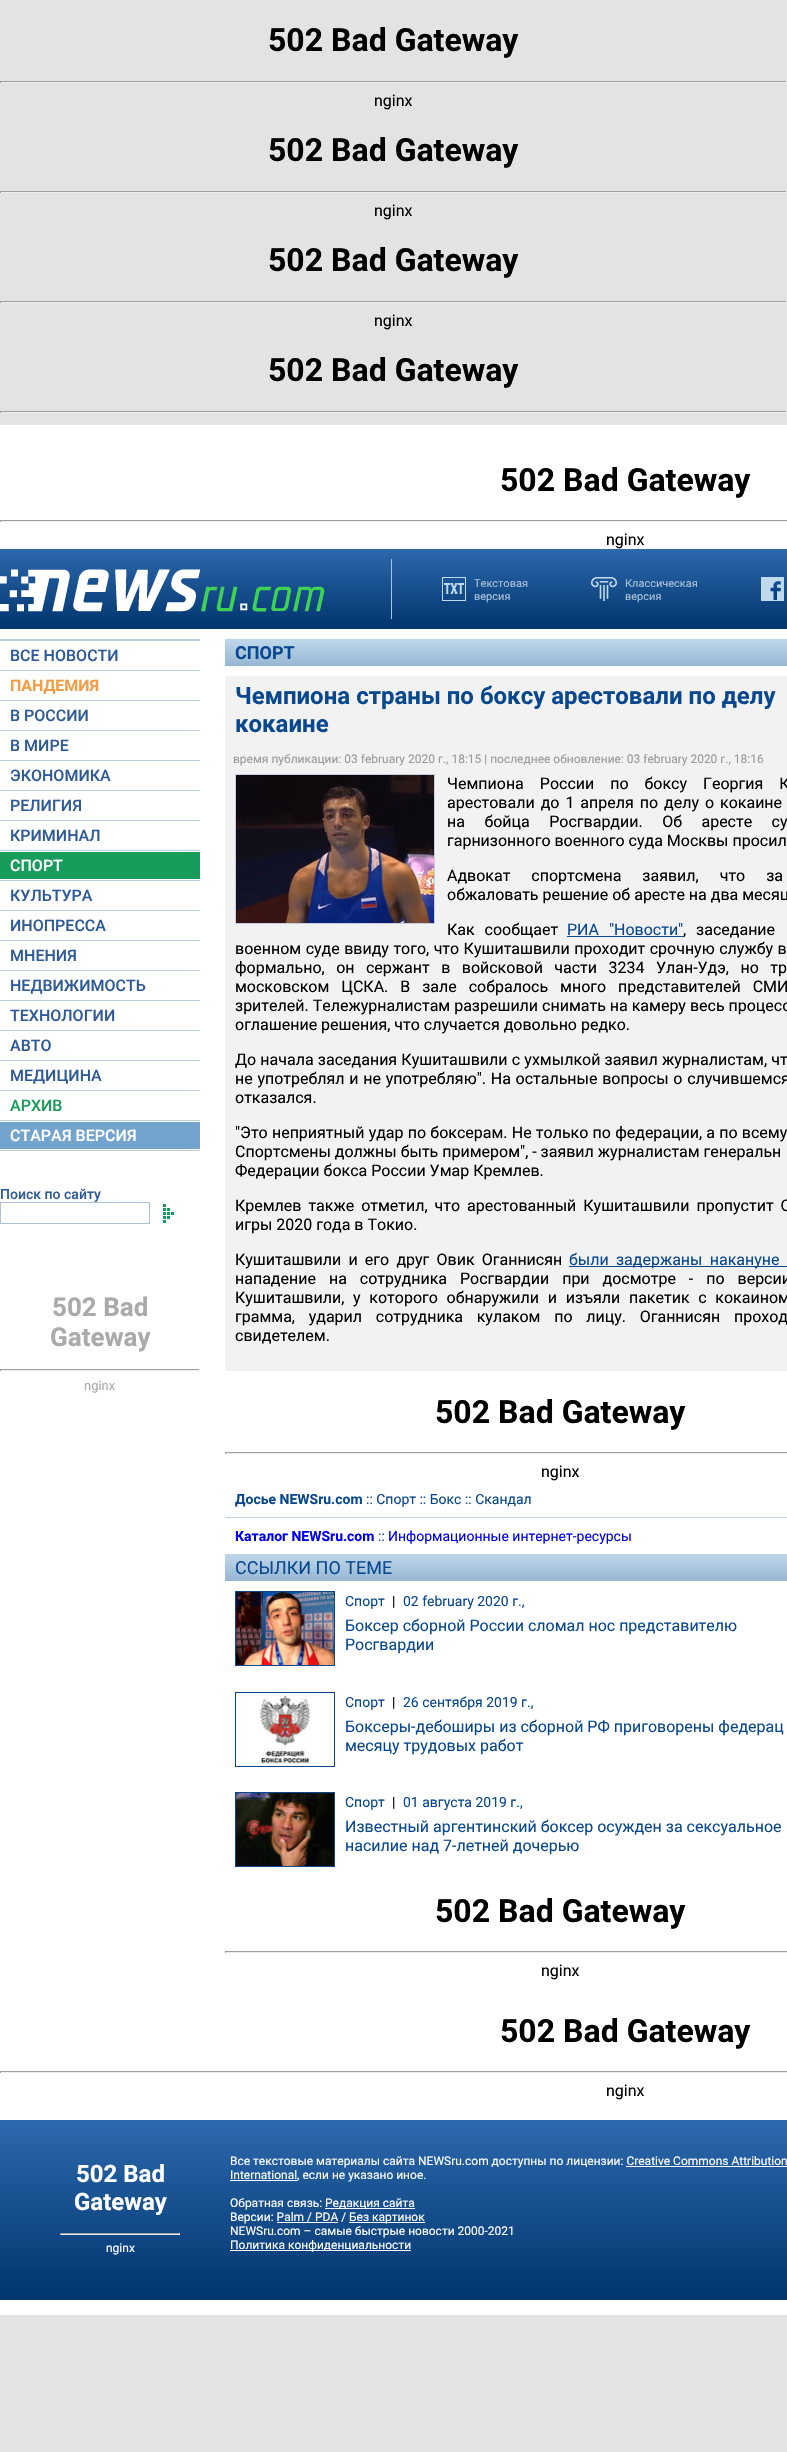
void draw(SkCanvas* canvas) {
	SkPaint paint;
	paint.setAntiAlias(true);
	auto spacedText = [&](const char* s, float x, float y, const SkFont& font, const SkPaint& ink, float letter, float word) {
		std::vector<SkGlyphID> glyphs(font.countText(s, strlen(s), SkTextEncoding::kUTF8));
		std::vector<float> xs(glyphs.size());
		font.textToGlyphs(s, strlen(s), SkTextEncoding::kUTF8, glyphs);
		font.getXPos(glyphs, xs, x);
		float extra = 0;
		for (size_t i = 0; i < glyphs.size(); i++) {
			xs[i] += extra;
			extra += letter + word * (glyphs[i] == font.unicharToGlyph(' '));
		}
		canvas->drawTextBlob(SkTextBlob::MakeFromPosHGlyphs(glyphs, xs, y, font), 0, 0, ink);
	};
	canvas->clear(0xffe3e3e3);
	SkFont f1(fontMgr->matchFamilyStyle("Roboto", SkFontStyle::Bold()), 32);
	f1.setSubpixel(true);
	paint.setColor(0xff000000);
	canvas->drawString("502 Bad Gateway", 268, 51, f1, paint);
	paint.setColor(0xff9f9f9f);
	canvas->drawRect(SkRect::MakeXYWH(0, 81, 787, 1), paint);
	paint.setColor(0xffeeeeee);
	canvas->drawRect(SkRect::MakeXYWH(786, 81, 1, 2), paint);
	canvas->drawRect(SkRect::MakeXYWH(0, 82, 787, 1), paint);
	paint.setColor(0xff9f9f9f);
	canvas->drawRect(SkRect::MakeXYWH(0, 81, 1, 2), paint);
	SkFont f2(fontMgr->matchFamilyStyle("Roboto", SkFontStyle::Normal()), 16);
	f2.setSubpixel(true);
	paint.setColor(0xff000000);
	canvas->drawString("nginx", 374, 106, f2, paint);
	canvas->drawString("502 Bad Gateway", 268, 161, f1, paint);
	paint.setColor(0xff9f9f9f);
	canvas->drawRect(SkRect::MakeXYWH(0, 191, 787, 1), paint);
	paint.setColor(0xffeeeeee);
	canvas->drawRect(SkRect::MakeXYWH(786, 191, 1, 2), paint);
	canvas->drawRect(SkRect::MakeXYWH(0, 192, 787, 1), paint);
	paint.setColor(0xff9f9f9f);
	canvas->drawRect(SkRect::MakeXYWH(0, 191, 1, 2), paint);
	paint.setColor(0xff000000);
	canvas->drawString("nginx", 374, 216, f2, paint);
	canvas->drawString("502 Bad Gateway", 268, 271, f1, paint);
	paint.setColor(0xff9f9f9f);
	canvas->drawRect(SkRect::MakeXYWH(0, 301, 787, 1), paint);
	paint.setColor(0xffeeeeee);
	canvas->drawRect(SkRect::MakeXYWH(786, 301, 1, 2), paint);
	canvas->drawRect(SkRect::MakeXYWH(0, 302, 787, 1), paint);
	paint.setColor(0xff9f9f9f);
	canvas->drawRect(SkRect::MakeXYWH(0, 301, 1, 2), paint);
	paint.setColor(0xff000000);
	canvas->drawString("nginx", 374, 326, f2, paint);
	canvas->drawString("502 Bad Gateway", 268, 381, f1, paint);
	paint.setColor(0xff9f9f9f);
	canvas->drawRect(SkRect::MakeXYWH(0, 411, 787, 1), paint);
	paint.setColor(0xffeeeeee);
	canvas->drawRect(SkRect::MakeXYWH(786, 411, 1, 2), paint);
	canvas->drawRect(SkRect::MakeXYWH(0, 412, 787, 1), paint);
	paint.setColor(0xff9f9f9f);
	canvas->drawRect(SkRect::MakeXYWH(0, 411, 1, 2), paint);
	paint.setColor(0xffffffff);
	canvas->drawRect(SkRect::MakeXYWH(0, 440, 787, 1680), paint);
	{
		const SkColor colors[] = {0xff2d69ad, 0xff00346d};
		const float stops[] = {0, 1};
		const SkPoint ends[] = {{625, 549}, {625, 629}};
		paint.setShader(SkGradientShader::MakeLinear(ends, colors, stops, 2, SkTileMode::kClamp));
		paint.setAlpha(255);
	}
	canvas->drawRect(SkRect::MakeXYWH(0, 549, 787, 80), paint);
	canvas->drawImageRect(SkImages::DeferredFromEncodedData(SkData::MakeFromFileName("img1.png")), SkRect::MakeXYWH(0, 569, 325, 43), SkSamplingOptions());
	paint.setShader(nullptr);
	paint.setColor(0xffaac2db);
	canvas->drawRect(SkRect::MakeXYWH(391, 559, 1, 60), paint);
	canvas->drawImageRect(SkImages::DeferredFromEncodedData(SkData::MakeFromFileName("img2.png")), SkRect::MakeXYWH(442, 577, 24, 24), SkSamplingOptions());
	canvas->drawImageRect(SkImages::DeferredFromEncodedData(SkData::MakeFromFileName("img3.png")), SkRect::MakeXYWH(591, 577, 26, 24), SkSamplingOptions());
	canvas->drawImageRect(SkImages::DeferredFromEncodedData(SkData::MakeFromFileName("img4.png")), SkRect::MakeXYWH(761, 577, 23, 24), SkSamplingOptions());
	paint.setColor(0xffbfcfe2);
	canvas->drawRect(SkRect::MakeXYWH(0, 639, 200, 2), paint);
	canvas->drawRect(SkRect::MakeXYWH(0, 670, 200, 1), paint);
	canvas->drawRect(SkRect::MakeXYWH(0, 700, 200, 1), paint);
	canvas->drawRect(SkRect::MakeXYWH(0, 730, 200, 1), paint);
	canvas->drawRect(SkRect::MakeXYWH(0, 760, 200, 1), paint);
	canvas->drawRect(SkRect::MakeXYWH(0, 790, 200, 1), paint);
	canvas->drawRect(SkRect::MakeXYWH(0, 820, 200, 1), paint);
	canvas->drawRect(SkRect::MakeXYWH(0, 850, 200, 1), paint);
	canvas->drawRect(SkRect::MakeXYWH(0, 880, 200, 1), paint);
	paint.setColor(0xff189c5b);
	canvas->drawRect(SkRect::MakeXYWH(0, 852, 200, 27), paint);
	paint.setColor(0xffbfcfe2);
	canvas->drawRect(SkRect::MakeXYWH(0, 910, 200, 1), paint);
	canvas->drawRect(SkRect::MakeXYWH(0, 940, 200, 1), paint);
	canvas->drawRect(SkRect::MakeXYWH(0, 970, 200, 1), paint);
	canvas->drawRect(SkRect::MakeXYWH(0, 1000, 200, 1), paint);
	canvas->drawRect(SkRect::MakeXYWH(0, 1030, 200, 1), paint);
	canvas->drawRect(SkRect::MakeXYWH(0, 1060, 200, 1), paint);
	canvas->drawRect(SkRect::MakeXYWH(0, 1090, 200, 1), paint);
	canvas->drawRect(SkRect::MakeXYWH(0, 1120, 200, 1), paint);
	canvas->drawRect(SkRect::MakeXYWH(0, 1150, 200, 1), paint);
	paint.setColor(0xff73a4cd);
	canvas->drawRect(SkRect::MakeXYWH(0, 1122, 200, 27), paint);
	paint.setStroke(true);
	paint.setStrokeWidth(1);
	paint.setColor(0xffaac2db);
	canvas->drawRect(SkRect::MakeXYWH(0.5, 1202.5, 149, 21), paint);
	paint.setStroke(false);
	{
		const SkColor colors[] = {0xffc0d8ec, 0xff95b6d1};
		const float stops[] = {0, 1};
		const SkPoint ends[] = {{560, 639}, {560, 666}};
		paint.setShader(SkGradientShader::MakeLinear(ends, colors, stops, 2, SkTileMode::kClamp));
		paint.setAlpha(255);
	}
	canvas->drawRect(SkRect::MakeXYWH(225, 639, 562, 27), paint);
	paint.setShader(nullptr);
	paint.setColor(0xfff2f2f2);
	canvas->drawRect(SkRect::MakeXYWH(225, 676, 562, 695), paint);
	paint.setStroke(true);
	paint.setColor(0xffc7cedf);
	canvas->drawRect(SkRect::MakeXYWH(235.5, 774.5, 199, 149), paint);
	canvas->drawImageRect(SkImages::DeferredFromEncodedData(SkData::MakeFromFileName("img6.png")), SkRect::MakeXYWH(236, 775, 198, 148), SkSamplingOptions());
	paint.setStroke(false);
	paint.setColor(0xff09488f);
	canvas->drawRect(SkRect::MakeXYWH(567, 936, 116, 1), paint);
	canvas->drawRect(SkRect::MakeXYWH(569, 1266, 218, 1), paint);
	paint.setColor(0xffc3d2e4);
	canvas->drawRect(SkRect::MakeXYWH(225, 1517, 562, 1), paint);
	{
		const SkColor colors[] = {0xffc0d8ec, 0xff95b6d1};
		const float stops[] = {0, 1};
		const SkPoint ends[] = {{560, 1554}, {560, 1581}};
		paint.setShader(SkGradientShader::MakeLinear(ends, colors, stops, 2, SkTileMode::kClamp));
		paint.setAlpha(255);
	}
	canvas->drawRect(SkRect::MakeXYWH(225, 1554, 562, 27), paint);
	paint.setStroke(true);
	paint.setShader(nullptr);
	paint.setColor(0xff09488f);
	canvas->drawRect(SkRect::MakeXYWH(235.5, 1591.5, 99, 74), paint);
	canvas->drawImageRect(SkImages::DeferredFromEncodedData(SkData::MakeFromFileName("img7.png")), SkRect::MakeXYWH(236, 1592, 98, 73), SkSamplingOptions());
	canvas->drawRect(SkRect::MakeXYWH(235.5, 1692.5, 99, 74), paint);
	canvas->drawImageRect(SkImages::DeferredFromEncodedData(SkData::MakeFromFileName("img8.png")), SkRect::MakeXYWH(236, 1693, 98, 73), SkSamplingOptions());
	canvas->drawRect(SkRect::MakeXYWH(235.5, 1792.5, 99, 74), paint);
	canvas->drawImageRect(SkImages::DeferredFromEncodedData(SkData::MakeFromFileName("img9.png")), SkRect::MakeXYWH(236, 1793, 98, 73), SkSamplingOptions());
	paint.setStroke(false);
	{
		const SkColor colors[] = {0xff2d69ad, 0xff00346d};
		const float stops[] = {0, 1};
		const SkPoint ends[] = {{625, 2120}, {625, 2300}};
		paint.setShader(SkGradientShader::MakeLinear(ends, colors, stops, 2, SkTileMode::kClamp));
		paint.setAlpha(255);
	}
	canvas->drawRect(SkRect::MakeXYWH(0, 2120, 787, 180), paint);
	paint.setShader(nullptr);
	paint.setColor(0xffffffff);
	canvas->drawRect(SkRect::MakeXYWH(626, 2166, 161, 1), paint);
	canvas->drawRect(SkRect::MakeXYWH(230, 2180, 67, 1), paint);
	canvas->drawRect(SkRect::MakeXYWH(325, 2208, 90, 1), paint);
	canvas->drawRect(SkRect::MakeXYWH(349, 2222, 76, 1), paint);
	canvas->drawRect(SkRect::MakeXYWH(277, 2222, 61, 1), paint);
	canvas->drawRect(SkRect::MakeXYWH(230, 2250, 181, 1), paint);
	paint.setStroke(true);
	paint.setStrokeWidth(15);
	canvas->drawRect(SkRect::MakeXYWH(-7.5, 432.5, 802, 1875), paint);
	paint.setStroke(false);
	paint.setColor(0xff000000);
	canvas->drawString("502 Bad Gateway", 500, 491, f1, paint);
	paint.setColor(0xff9f9f9f);
	canvas->drawRect(SkRect::MakeXYWH(0, 520, 787, 1), paint);
	paint.setColor(0xffeeeeee);
	canvas->drawRect(SkRect::MakeXYWH(0, 521, 787, 1), paint);
	paint.setColor(0xff9f9f9f);
	canvas->drawRect(SkRect::MakeXYWH(0, 520, 1, 2), paint);
	paint.setColor(0xff000000);
	canvas->drawString("nginx", 606, 545, f2, paint);
	SkFont f3(fontMgr->matchFamilyStyle("Roboto", SkFontStyle::Normal()), 11);
	f3.setSubpixel(true);
	paint.setColor(0xffaac2db);
	canvas->drawString("Текстовая", 474, 587, f3, paint);
	canvas->drawString("версия", 474, 600, f3, paint);
	canvas->drawString("Классическая", 625, 587, f3, paint);
	canvas->drawString("версия", 625, 600, f3, paint);
	SkFont f4(fontMgr->matchFamilyStyle("Roboto", SkFontStyle(500, SkFontStyle::kNormal_Width, SkFontStyle::kUpright_Slant)), 16);
	f4.setSubpixel(true);
	paint.setColor(0xff2e5a98);
	canvas->drawString("ВСЕ НОВОСТИ", 10, 661, f4, paint);
	SkFont f5(fontMgr->matchFamilyStyle("Roboto", SkFontStyle::Bold()), 16);
	f5.setSubpixel(true);
	paint.setColor(0xfff39d46);
	canvas->drawString("ПАНДЕМИЯ", 10, 691, f5, paint);
	paint.setColor(0xff2e5a98);
	canvas->drawString("В РОССИИ", 10, 721, f4, paint);
	canvas->drawString("В МИРЕ", 10, 751, f4, paint);
	canvas->drawString("ЭКОНОМИКА", 10, 781, f4, paint);
	canvas->drawString("РЕЛИГИЯ", 10, 811, f4, paint);
	canvas->drawString("КРИМИНАЛ", 10, 841, f4, paint);
	paint.setColor(0xffffffff);
	canvas->drawString("СПОРТ", 10, 871, f4, paint);
	paint.setColor(0xff2e5a98);
	canvas->drawString("КУЛЬТУРА", 10, 901, f4, paint);
	canvas->drawString("ИНОПРЕССА", 10, 931, f4, paint);
	canvas->drawString("МНЕНИЯ", 10, 961, f4, paint);
	canvas->drawString("НЕДВИЖИМОСТЬ", 10, 991, f4, paint);
	canvas->drawString("ТЕХНОЛОГИИ", 10, 1021, f4, paint);
	canvas->drawString("АВТО", 10, 1051, f4, paint);
	canvas->drawString("МЕДИЦИНА", 10, 1081, f4, paint);
	paint.setColor(0xff189c5b);
	canvas->drawString("АРХИВ", 10, 1111, f4, paint);
	paint.setColor(0xffffffff);
	canvas->drawString("СТАРАЯ ВЕРСИЯ", 10, 1141, f4, paint);
	SkFont f6(fontMgr->matchFamilyStyle("Roboto", SkFontStyle(500, SkFontStyle::kNormal_Width, SkFontStyle::kUpright_Slant)), 14);
	f6.setSubpixel(true);
	paint.setColor(0xff2e5a98);
	canvas->drawString("Поиск по сайту", 0, 1199, f6, paint);
	canvas->drawImageRect(SkImages::DeferredFromEncodedData(SkData::MakeFromFileName("img5.png")), SkRect::MakeXYWH(163, 1204, 11, 19), SkSamplingOptions());
	SkFont f7(fontMgr->matchFamilyStyle("Roboto", SkFontStyle::Bold()), 26);
	f7.setSubpixel(true);
	paint.setColor(0xffaaaaaa);
	canvas->drawString("502 Bad", 52, 1316, f7, paint);
	canvas->drawString("Gateway", 50, 1346, f7, paint);
	paint.setColor(0xff9f9f9f);
	canvas->drawRect(SkRect::MakeXYWH(0, 1369, 200, 1), paint);
	paint.setColor(0xffeeeeee);
	canvas->drawRect(SkRect::MakeXYWH(199, 1369, 1, 2), paint);
	canvas->drawRect(SkRect::MakeXYWH(0, 1370, 200, 1), paint);
	paint.setColor(0xff9f9f9f);
	canvas->drawRect(SkRect::MakeXYWH(0, 1369, 1, 2), paint);
	SkFont f8(fontMgr->matchFamilyStyle("Roboto", SkFontStyle::Normal()), 13);
	f8.setSubpixel(true);
	paint.setColor(0xffaaaaaa);
	canvas->drawString("nginx", 84, 1390, f8, paint);
	SkFont f9(fontMgr->matchFamilyStyle("Roboto", SkFontStyle::Bold()), 18);
	f9.setSubpixel(true);
	paint.setColor(0xff09488f);
	canvas->drawString("СПОРТ", 235, 659, f9, paint);
	SkFont f10(fontMgr->matchFamilyStyle("Roboto", SkFontStyle::Bold()), 24);
	f10.setSubpixel(true);
	canvas->drawString("Чемпиона страны по боксу арестовали по делу", 235, 704, f10, paint);
	canvas->drawString("кокаине", 235, 732, f10, paint);
	SkFont f11(fontMgr->matchFamilyStyle("Roboto", SkFontStyle::Normal()), 12);
	f11.setSubpixel(true);
	paint.setColor(0xff999999);
	canvas->drawString("время публикации: 03 february 2020 г., 18:15 | последнее обновление: 03 february 2020 г., 18:16", 233, 763, f11, paint);
	paint.setColor(0xff000000);
	spacedText("Чемпиона России по боксу Георгия К", 447, 789, f2, paint, 0, 12);
	spacedText("арестовали до 1 апреля по делу о кокаине", 447, 808, f2, paint, 0, 2);
	spacedText("на бойца Росгвардии. Об аресте су", 447, 827, f2, paint, 0, 15.5);
	canvas->drawString("гарнизонного военного суда Москвы просил", 447, 846, f2, paint);
	spacedText("Адвокат спортсмена заявил, что за", 447, 881, f2, paint, 0, 17);
	canvas->drawString("обжаловать решение об аресте на два месяц", 447, 900, f2, paint);
	spacedText("Как сообщает", 447, 935, f2, paint, 0, 6);
	paint.setColor(0xff09488f);
	spacedText("РИА \"Новости\"", 567, 935, f2, paint, 0, 6);
	paint.setColor(0xff000000);
	spacedText(", заседание", 683, 935, f2, paint, 0, 6);
	spacedText("военном суде ввиду того, что Кушиташвили проходит срочную службу в", 235, 954, f2, paint, 0, 0.5);
	spacedText("формально, он сержант в войсковой части 3234 Улан-Удэ, но тр", 235, 973, f2, paint, 0, 7.5);
	spacedText("московском ЦСКА. В зале собралось много представителей СМИ", 235, 992, f2, paint, 0, 8);
	canvas->drawString("зрителей. Тележурналистам разрешили снимать на камеру весь процесс", 235, 1011, f2, paint);
	canvas->drawString("оглашение решения, что случается довольно редко.", 235, 1030, f2, paint);
	spacedText("До начала заседания Кушиташвили с ухмылкой заявил журналистам, чт", 235, 1065, f2, paint, 0, 0.25);
	spacedText("не употреблял и не употребляю\". На остальные вопросы о случившемся", 235, 1084, f2, paint, 0, 0.75);
	canvas->drawString("отказался.", 235, 1103, f2, paint);
	spacedText("\"Это неприятный удар по боксерам. Не только по федерации, а по всему", 235, 1138, f2, paint, 0, 0.25);
	canvas->drawString("Спортсмены должны быть примером\", - заявил журналистам генеральн", 235, 1157, f2, paint);
	canvas->drawString("Федерации бокса России Умар Кремлев.", 235, 1176, f2, paint);
	spacedText("Кремлев также отметил, что арестованный Кушиташвили пропустит О", 235, 1211, f2, paint, 0, 3);
	canvas->drawString("игры 2020 года в Токио.", 235, 1230, f2, paint);
	spacedText("Кушиташвили и его друг Овик Оганнисян", 235, 1265, f2, paint, 0, 3.25);
	paint.setColor(0xff09488f);
	spacedText("были задержаны накануне", 569, 1265, f2, paint, 0, 3.25);
	paint.setColor(0xff000000);
	spacedText("нападение на сотрудника Росгвардии при досмотре - по версии", 235, 1284, f2, paint, 0, 9);
	spacedText("Кушиташвили, у которого обнаружили и изъяли пакетик с кокаином", 235, 1303, f2, paint, 0, 4.75);
	spacedText("грамма, ударил сотрудника кулаком по лицу. Оганнисян проход", 235, 1322, f2, paint, 0, 9.75);
	canvas->drawString("свидетелем.", 235, 1341, f2, paint);
	canvas->drawString("502 Bad Gateway", 435, 1423, f1, paint);
	paint.setColor(0xff9f9f9f);
	canvas->drawRect(SkRect::MakeXYWH(225, 1452, 562, 1), paint);
	paint.setColor(0xffeeeeee);
	canvas->drawRect(SkRect::MakeXYWH(225, 1453, 562, 1), paint);
	paint.setColor(0xff9f9f9f);
	canvas->drawRect(SkRect::MakeXYWH(225, 1452, 1, 2), paint);
	paint.setColor(0xff000000);
	canvas->drawString("nginx", 541, 1477, f2, paint);
	SkFont f12(fontMgr->matchFamilyStyle("Roboto", SkFontStyle::Bold()), 14);
	f12.setSubpixel(true);
	paint.setColor(0xff09488f);
	canvas->drawString("Досье NEWSru.com", 235, 1504, f12, paint);
	SkFont f13(fontMgr->matchFamilyStyle("Roboto", SkFontStyle::Normal()), 14);
	f13.setSubpixel(true);
	canvas->drawString(":: Спорт :: Бокс :: Скандал", 366, 1504, f13, paint);
	paint.setColor(0xff0000ee);
	canvas->drawString("Каталог NEWSru.com", 235, 1541, f12, paint);
	paint.setColor(0xff09488f);
	canvas->drawString("::", 378, 1541, f13, paint);
	paint.setColor(0xff0000ee);
	canvas->drawString("Информационные интернет-ресурсы", 388, 1541, f13, paint);
	SkFont f14(fontMgr->matchFamilyStyle("Roboto", SkFontStyle::Normal()), 18);
	f14.setSubpixel(true);
	paint.setColor(0xff09488f);
	canvas->drawString("ССЫЛКИ ПО ТЕМЕ", 235, 1574, f14, paint);
	canvas->drawString("Спорт", 345, 1606, f13, paint);
	paint.setColor(0xff000000);
	canvas->drawString("|", 392, 1606, f13, paint);
	paint.setColor(0xff09488f);
	canvas->drawString("02 february 2020 г.,", 403, 1606, f13, paint);
	canvas->drawString("Боксер сборной России сломал нос представителю", 345, 1631, f2, paint);
	canvas->drawString("Росгвардии", 345, 1650, f2, paint);
	canvas->drawString("Спорт", 345, 1707, f13, paint);
	paint.setColor(0xff000000);
	canvas->drawString("|", 392, 1707, f13, paint);
	paint.setColor(0xff09488f);
	canvas->drawString("26 сентября 2019 г.,", 403, 1707, f13, paint);
	canvas->drawString("Боксеры-дебоширы из сборной РФ приговорены федерац", 345, 1732, f2, paint);
	canvas->drawString("месяцу трудовых работ", 345, 1751, f2, paint);
	canvas->drawString("Спорт", 345, 1807, f13, paint);
	paint.setColor(0xff000000);
	canvas->drawString("|", 392, 1807, f13, paint);
	paint.setColor(0xff09488f);
	canvas->drawString("01 августа 2019 г.,", 403, 1807, f13, paint);
	canvas->drawString("Известный аргентинский боксер осужден за сексуальное", 345, 1832, f2, paint);
	canvas->drawString("насилие над 7-летней дочерью", 345, 1851, f2, paint);
	paint.setColor(0xff000000);
	canvas->drawString("502 Bad Gateway", 435, 1922, f1, paint);
	paint.setColor(0xff9f9f9f);
	canvas->drawRect(SkRect::MakeXYWH(225, 1951, 562, 1), paint);
	paint.setColor(0xffeeeeee);
	canvas->drawRect(SkRect::MakeXYWH(225, 1952, 562, 1), paint);
	paint.setColor(0xff9f9f9f);
	canvas->drawRect(SkRect::MakeXYWH(225, 1951, 1, 2), paint);
	paint.setColor(0xff000000);
	canvas->drawString("nginx", 541, 1976, f2, paint);
	canvas->drawString("502 Bad Gateway", 500, 2042, f1, paint);
	paint.setColor(0xff9f9f9f);
	canvas->drawRect(SkRect::MakeXYWH(0, 2071, 787, 1), paint);
	paint.setColor(0xffeeeeee);
	canvas->drawRect(SkRect::MakeXYWH(0, 2072, 787, 1), paint);
	paint.setColor(0xff9f9f9f);
	canvas->drawRect(SkRect::MakeXYWH(0, 2071, 1, 2), paint);
	paint.setColor(0xff000000);
	canvas->drawString("nginx", 606, 2096, f2, paint);
	paint.setColor(0xffffffff);
	canvas->drawString("502 Bad", 76, 2182, f10, paint);
	canvas->drawString("Gateway", 74, 2210, f10, paint);
	paint.setColor(0xff9f9f9f);
	canvas->drawRect(SkRect::MakeXYWH(60, 2233, 120, 1), paint);
	paint.setColor(0xffeeeeee);
	canvas->drawRect(SkRect::MakeXYWH(179, 2233, 1, 2), paint);
	canvas->drawRect(SkRect::MakeXYWH(60, 2234, 120, 1), paint);
	paint.setColor(0xff9f9f9f);
	canvas->drawRect(SkRect::MakeXYWH(60, 2233, 1, 2), paint);
	paint.setColor(0xffffffff);
	canvas->drawString("nginx", 106, 2252, f11, paint);
	canvas->drawString("Все текстовые материалы сайта NEWSru.com доступны по лицензии: Creative Commons Attribution", 230, 2165, f11, paint);
	canvas->drawString("International, если не указано иное.", 230, 2179, f11, paint);
	canvas->drawString("Обратная связь:", 230, 2207, f11, paint);
	canvas->drawString("Редакция сайта", 325, 2207, f11, paint);
	canvas->drawString("Версии: Palm / PDA /", 230, 2221, f11, paint);
	canvas->drawString("Без картинок", 349, 2221, f11, paint);
	canvas->drawString("NEWSru.com – самые быстрые новости 2000-2021", 230, 2235, f11, paint);
	canvas->drawString("Политика конфиденциальности", 230, 2249, f11, paint);
}
